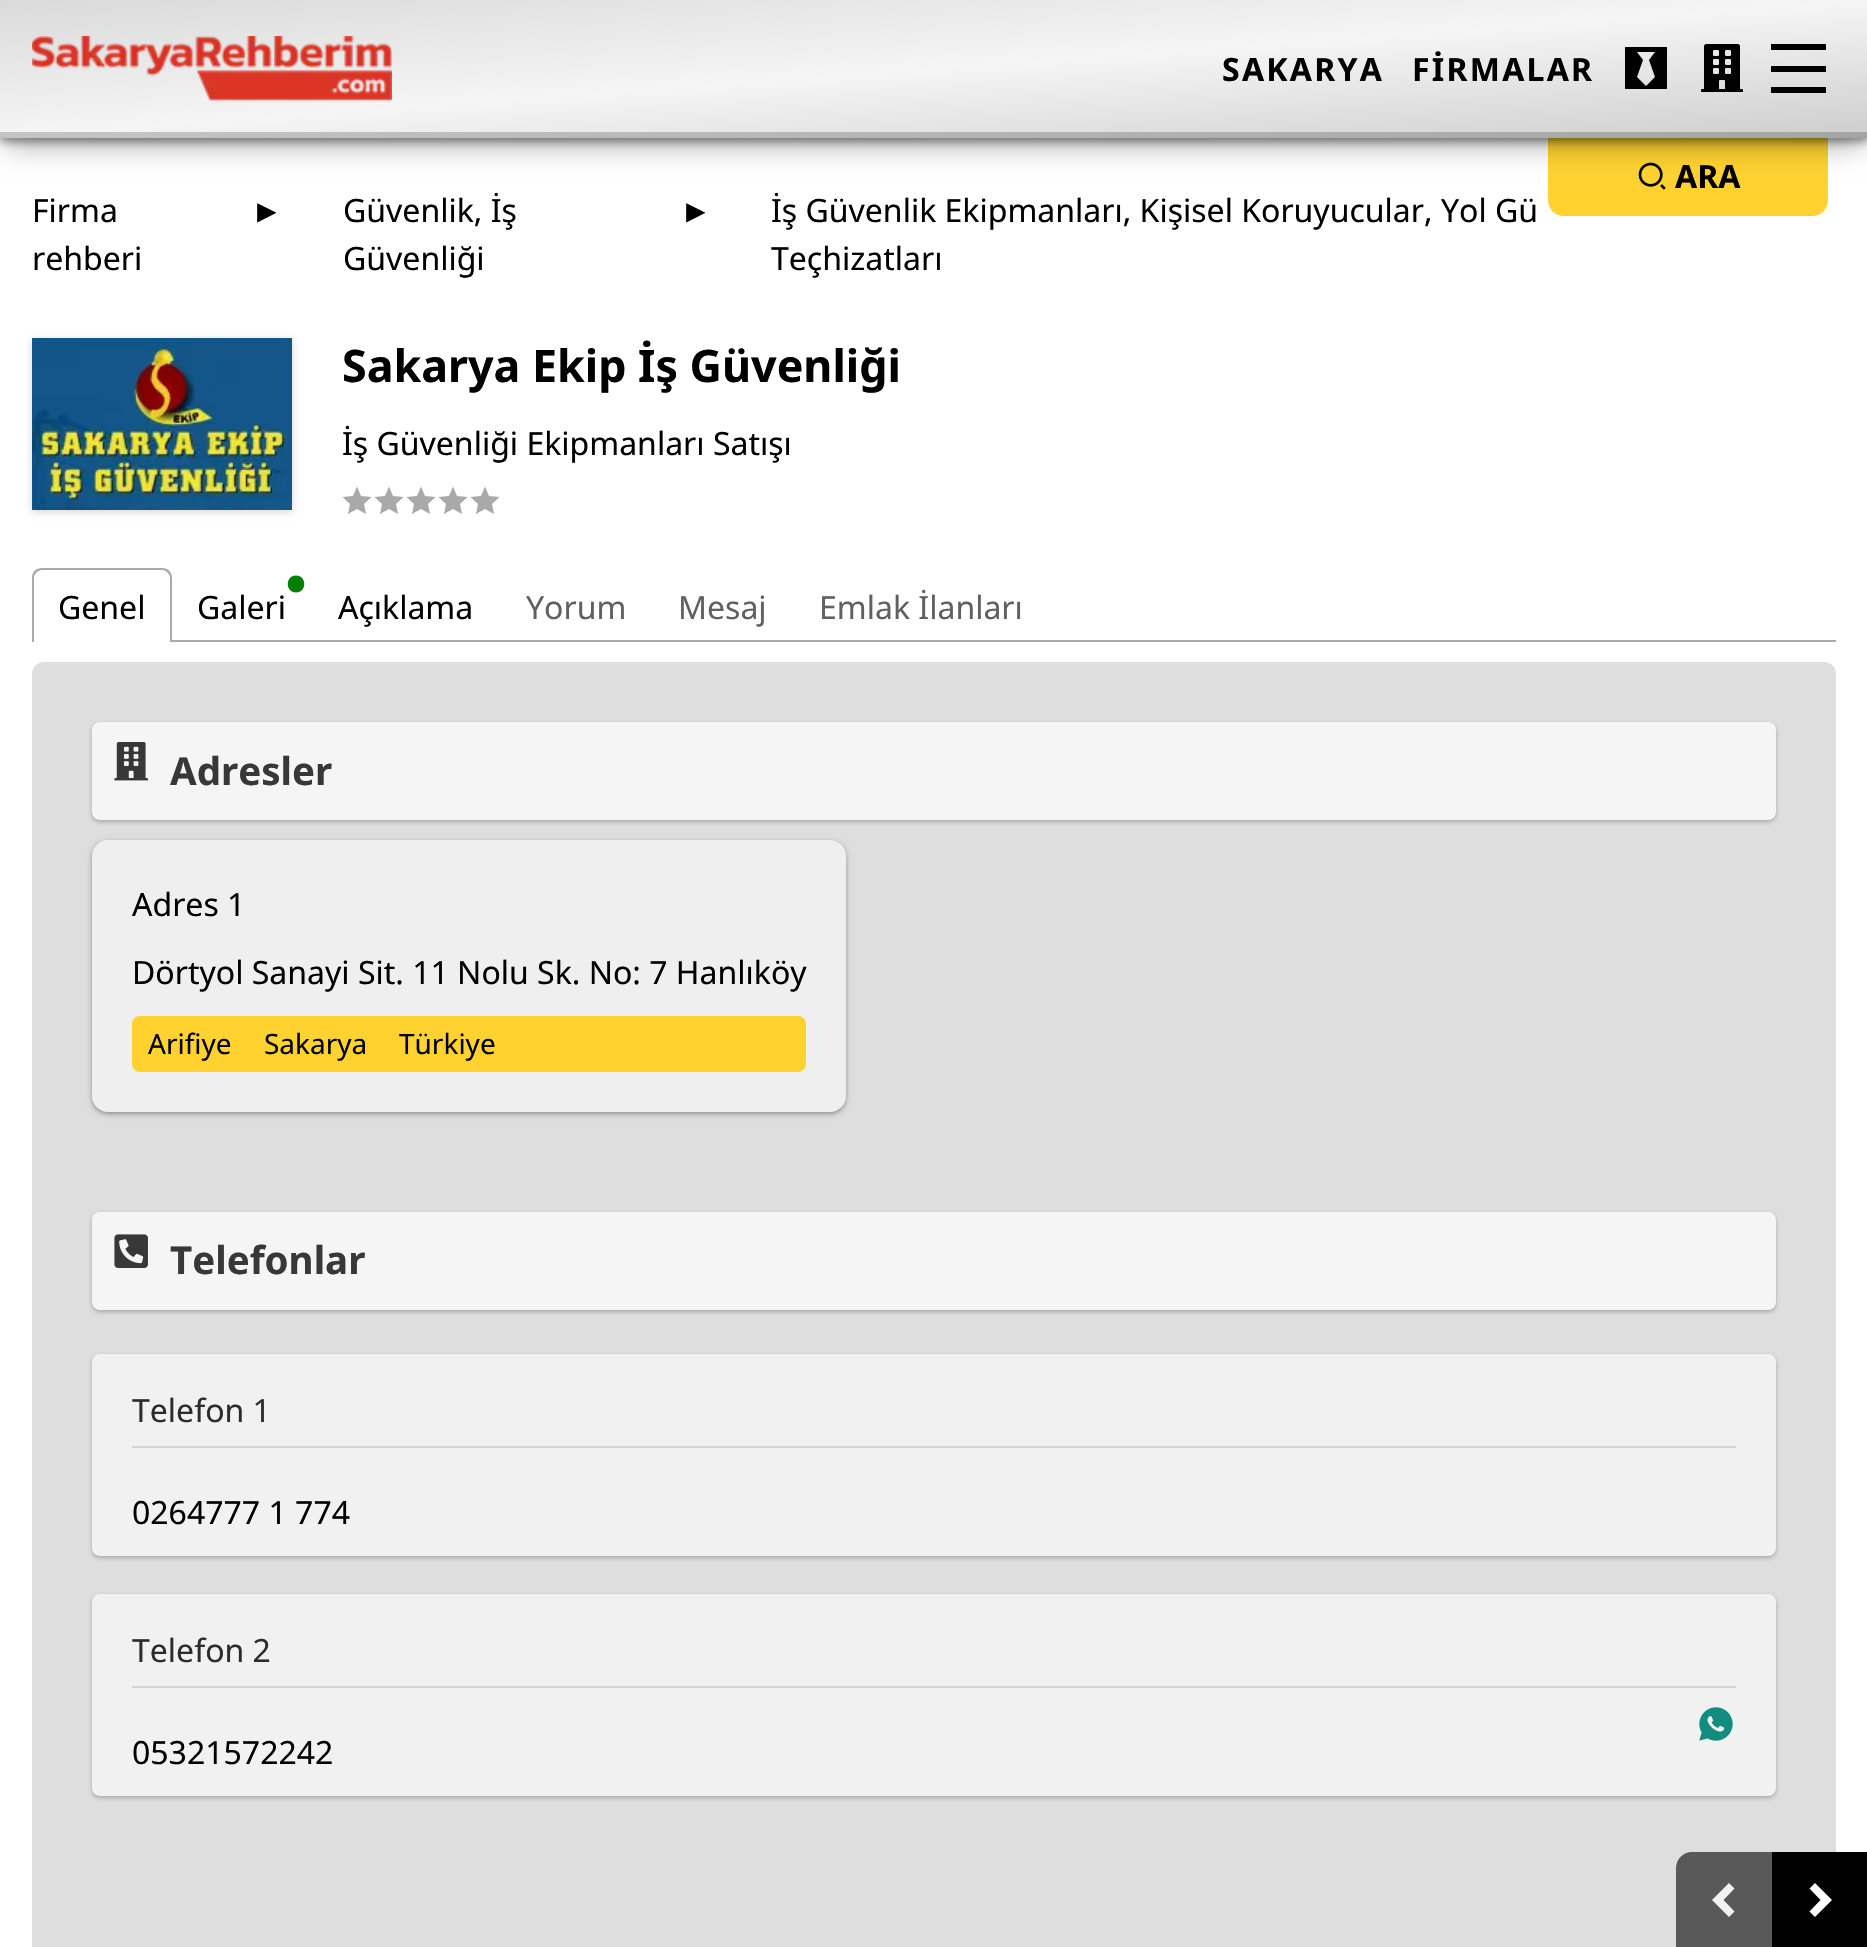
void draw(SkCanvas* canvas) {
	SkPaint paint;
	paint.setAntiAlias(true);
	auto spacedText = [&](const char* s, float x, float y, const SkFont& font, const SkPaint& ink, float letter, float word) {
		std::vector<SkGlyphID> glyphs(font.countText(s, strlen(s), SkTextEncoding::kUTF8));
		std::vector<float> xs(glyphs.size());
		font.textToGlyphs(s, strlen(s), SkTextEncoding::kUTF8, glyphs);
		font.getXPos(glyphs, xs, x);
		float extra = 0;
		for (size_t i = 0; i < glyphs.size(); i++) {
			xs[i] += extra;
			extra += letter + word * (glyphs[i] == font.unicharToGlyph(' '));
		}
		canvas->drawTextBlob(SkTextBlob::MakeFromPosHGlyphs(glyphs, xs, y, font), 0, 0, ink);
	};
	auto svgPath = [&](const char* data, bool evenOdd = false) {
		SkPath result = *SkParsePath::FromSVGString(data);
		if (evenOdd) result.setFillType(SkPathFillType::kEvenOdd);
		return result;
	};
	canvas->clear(0xffffffff);
	paint.setColor(0xffffd230);
	canvas->drawPath(svgPath("M1548 136H1828V200C1828 209 1821 216 1812 216H1564C1555 216 1548 209 1548 200Z"), paint);
	canvas->drawImageRect(SkImages::DeferredFromEncodedData(SkData::MakeFromFileName("img3.png")), SkRect::MakeXYWH(1638, 162, 28, 28), SkSamplingOptions());
	paint.setColor(0x4d000000);
	paint.setMaskFilter(SkMaskFilter::MakeBlur(kNormal_SkBlurStyle, 13));
	canvas->drawRect(SkRect::MakeXYWH(6, 20, 1856, 126), paint);
	paint.setMaskFilter(nullptr);
	paint.setColor(0x66000000);
	paint.setMaskFilter(SkMaskFilter::MakeBlur(kNormal_SkBlurStyle, 4));
	canvas->drawRect(SkRect::MakeXYWH(0, 4, 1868, 138), paint);
	paint.setMaskFilter(nullptr);
	{
		const SkColor colors[] = {0xffdadada, 0xfff5f5f5, 0xffcdcdcd};
		const float stops[] = {0, 0.5, 1};
		const SkPoint ends[] = {{924, -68}, {944, 206}};
		paint.setShader(SkGradientShader::MakeLinear(ends, colors, stops, 3, SkTileMode::kClamp));
		paint.setAlpha(255);
	}
	canvas->drawRect(SkRect::MakeXYWH(0, 0, 1867, 132), paint);
	{
		const SkColor colors[] = {0xffaeaeae, 0xffc4c4c4, 0xffa4a4a4};
		const float stops[] = {0, 0.5, 1};
		const SkPoint ends[] = {{924, -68}, {944, 206}};
		paint.setShader(SkGradientShader::MakeLinear(ends, colors, stops, 3, SkTileMode::kClamp));
		paint.setAlpha(255);
	}
	canvas->drawRect(SkRect::MakeXYWH(0, 132, 1867, 6), paint);
	canvas->drawImageRect(SkImages::DeferredFromEncodedData(SkData::MakeFromFileName("img1.png")), SkRect::MakeXYWH(32, 36, 360, 66), SkSamplingOptions());
	SkFont f1(fontMgr->matchFamilyStyle("Noto Sans", SkFontStyle::Bold()), 32);
	f1.setSubpixel(true);
	paint.setShader(nullptr);
	paint.setColor(0xff000000);
	spacedText("SAKARYA", 1222, 81, f1, paint, 2.25, 0);
	spacedText("FİRMALAR", 1412, 81, f1, paint, 2.25, 0);
	canvas->drawPath(svgPath("M1625 47V89H1667V47ZM1655 77L1646 86L1637 77L1643 60L1637 52H1655L1649 60Z"), paint);
	canvas->drawImageRect(SkImages::DeferredFromEncodedData(SkData::MakeFromFileName("img2.png")), SkRect::MakeXYWH(1701, 44, 42, 48), SkSamplingOptions());
	canvas->drawPath(svgPath("M1771 44H1826V50H1771ZM1771 66H1826V72H1771ZM1771 87H1826V93H1771Z"), paint);
	canvas->drawString("ARA", 1675, 188, f1, paint);
	SkFont f2(fontMgr->matchFamilyStyle("Noto Sans", SkFontStyle::Normal()), 32);
	f2.setSubpixel(true);
	canvas->drawString("Firma", 32, 222, f2, paint);
	canvas->drawString("rehberi", 32, 270, f2, paint);
	SkFont f3(fontMgr->matchFamilyStyle("Liberation Sans", SkFontStyle::Normal()), 32);
	f3.setSubpixel(true);
	canvas->drawString("►", 251, 222, f3, paint);
	canvas->drawString("Güvenlik, İş", 343, 222, f2, paint);
	canvas->drawString("Güvenliği", 343, 270, f2, paint);
	canvas->drawString("►", 680, 222, f3, paint);
	canvas->drawString("İş Güvenlik Ekipmanları, Kişisel Koruyucular, Yol Gü", 771, 222, f2, paint);
	canvas->drawString("Teçhizatları", 771, 270, f2, paint);
	paint.setColor(0x29000000);
	paint.setMaskFilter(SkMaskFilter::MakeBlur(kNormal_SkBlurStyle, 4));
	canvas->drawRect(SkRect::MakeXYWH(32, 340, 260, 172), paint);
	paint.setMaskFilter(nullptr);
	canvas->drawImageRect(SkImages::DeferredFromEncodedData(SkData::MakeFromFileName("img4.png")), SkRect::MakeXYWH(32, 338, 260, 172), SkSamplingOptions());
	SkFont f4(fontMgr->matchFamilyStyle("Noto Sans", SkFontStyle::Bold()), 44.75);
	f4.setSubpixel(true);
	paint.setColor(0xff000000);
	canvas->drawString("Sakarya Ekip İş Güvenliği", 342, 382, f4, paint);
	canvas->drawString("İş Güvenliği Ekipmanları Satışı", 342, 455, f2, paint);
	paint.setColor(0xffa9a9a9);
	canvas->drawPath(svgPath("M357 509L348 514L350 504L342.5 497L353 496L357 486.5L361 496L371.5 497L364 504L366 514ZM389 509L380 514L382 504L374.5 497L385 496L389 486.5L393 496L403.5 497L396 504L398 514Z"), paint);
	canvas->drawPath(svgPath("M421 509L412 514L414 504L406.5 497L417 496L421 486.5L425 496L435.5 497L428 504L430 514ZM453 509L444 514L446 504L438.5 497L449 496L453 486.5L457 496L467.5 497L460 504L462 514Z"), paint);
	canvas->drawPath(svgPath("M485 509L476 514L478 504L470.5 497L481 496L485 486.5L489 496L499.5 497L492 504L494 514Z"), paint);
	paint.setColor(0xffaaaaaa);
	canvas->drawRect(SkRect::MakeXYWH(172, 640, 1664, 2), paint);
	canvas->drawPath(svgPath("M42 568H162C168 568 172 572 172 578V642H32V578C32 572 36 568 42 568ZM42 570H162C166 570 170 574 170 578V642H34V578C34 574 38 570 42 570Z", true), paint);
	paint.setColor(0xff000000);
	canvas->drawString("Genel", 58, 619, f2, paint);
	paint.setColor(0xff008000);
	canvas->drawPath(svgPath("M296 592.5C307 592.5 307 575.5 296 575.5C285 575.5 285 592.5 296 592.5Z"), paint);
	paint.setColor(0xff000000);
	canvas->drawString("Galeri", 197, 619, f2, paint);
	canvas->drawString("Açıklama", 338, 619, f2, paint);
	paint.setColor(0xff606060);
	canvas->drawString("Yorum", 526, 619, f2, paint);
	canvas->drawString("Mesaj", 678, 619, f2, paint);
	canvas->drawString("Emlak İlanları", 819, 619, f2, paint);
	paint.setColor(0xffdedede);
	canvas->drawRoundRect(SkRect::MakeXYWH(32, 662, 1804, 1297), 12, 12, paint);
	paint.setColor(0x3d000000);
	paint.setMaskFilter(SkMaskFilter::MakeBlur(kNormal_SkBlurStyle, 2));
	canvas->drawRoundRect(SkRect::MakeXYWH(92, 724, 1684, 98), 8, 8, paint);
	paint.setMaskFilter(nullptr);
	paint.setColor(0xfff5f5f5);
	canvas->drawRoundRect(SkRect::MakeXYWH(92, 722, 1684, 98), 8, 8, paint);
	canvas->drawImageRect(SkImages::DeferredFromEncodedData(SkData::MakeFromFileName("img5.png")), SkRect::MakeXYWH(114, 742, 34, 39), SkSamplingOptions());
	SkFont f5(fontMgr->matchFamilyStyle("Noto Sans", SkFontStyle::Bold()), 38.5);
	f5.setSubpixel(true);
	paint.setColor(0xff383838);
	canvas->drawString("Adresler", 170, 785, f5, paint);
	paint.setColor(0x3d000000);
	paint.setMaskFilter(SkMaskFilter::MakeBlur(kNormal_SkBlurStyle, 2));
	canvas->drawRoundRect(SkRect::MakeXYWH(92, 842, 754, 272), 16, 16, paint);
	paint.setMaskFilter(nullptr);
	paint.setColor(0x1f000000);
	paint.setMaskFilter(SkMaskFilter::MakeBlur(kNormal_SkBlurStyle, 3));
	canvas->drawRoundRect(SkRect::MakeXYWH(92, 842, 754, 272), 16, 16, paint);
	paint.setMaskFilter(nullptr);
	paint.setColor(0xffefefef);
	canvas->drawRoundRect(SkRect::MakeXYWH(92, 840, 754, 272), 16, 16, paint);
	paint.setColor(0xff000000);
	canvas->drawString("Adres 1", 132, 916, f2, paint);
	canvas->drawString("Dörtyol Sanayi Sit. 11 Nolu Sk. No: 7 Hanlıköy", 132, 984, f2, paint);
	paint.setColor(0xffffd230);
	canvas->drawRoundRect(SkRect::MakeXYWH(132, 1016, 674, 56), 8, 8, paint);
	SkFont f6(fontMgr->matchFamilyStyle("Noto Sans", SkFontStyle::Normal()), 28);
	f6.setSubpixel(true);
	paint.setColor(0xff000000);
	canvas->drawString("Arifiye", 148, 1054, f6, paint);
	canvas->drawString("Sakarya", 264, 1054, f6, paint);
	canvas->drawString("Türkiye", 399, 1054, f6, paint);
	paint.setColor(0x3d000000);
	paint.setMaskFilter(SkMaskFilter::MakeBlur(kNormal_SkBlurStyle, 2));
	canvas->drawRoundRect(SkRect::MakeXYWH(92, 1214, 1684, 98), 8, 8, paint);
	paint.setMaskFilter(nullptr);
	paint.setColor(0xfff5f5f5);
	canvas->drawRoundRect(SkRect::MakeXYWH(92, 1212, 1684, 98), 8, 8, paint);
	canvas->drawImageRect(SkImages::DeferredFromEncodedData(SkData::MakeFromFileName("img6.png")), SkRect::MakeXYWH(114, 1234, 34, 34), SkSamplingOptions());
	paint.setColor(0xff383838);
	canvas->drawString("Telefonlar", 170, 1274, f5, paint);
	paint.setColor(0x3d000000);
	paint.setMaskFilter(SkMaskFilter::MakeBlur(kNormal_SkBlurStyle, 2));
	canvas->drawRoundRect(SkRect::MakeXYWH(92, 1356, 1684, 202), 8, 8, paint);
	paint.setMaskFilter(nullptr);
	paint.setColor(0xfff1f1f1);
	canvas->drawRoundRect(SkRect::MakeXYWH(92, 1354, 1684, 202), 8, 8, paint);
	paint.setColor(0xffd3d3d3);
	canvas->drawRect(SkRect::MakeXYWH(132, 1446, 1604, 2), paint);
	paint.setColor(0xff2c2c2c);
	canvas->drawString("Telefon 1", 132, 1422, f2, paint);
	paint.setColor(0xff000000);
	canvas->drawString("0264777 1 774", 132, 1524, f2, paint);
	paint.setColor(0x3d000000);
	paint.setMaskFilter(SkMaskFilter::MakeBlur(kNormal_SkBlurStyle, 2));
	canvas->drawRoundRect(SkRect::MakeXYWH(92, 1596, 1684, 202), 8, 8, paint);
	paint.setMaskFilter(nullptr);
	paint.setColor(0xfff1f1f1);
	canvas->drawRoundRect(SkRect::MakeXYWH(92, 1594, 1684, 202), 8, 8, paint);
	paint.setColor(0xffd3d3d3);
	canvas->drawRect(SkRect::MakeXYWH(132, 1686, 1604, 2), paint);
	paint.setColor(0xff2c2c2c);
	canvas->drawString("Telefon 2", 132, 1662, f2, paint);
	canvas->drawImageRect(SkImages::DeferredFromEncodedData(SkData::MakeFromFileName("img7.png")), SkRect::MakeXYWH(1699, 1707, 34, 34), SkSamplingOptions());
	paint.setColor(0xff000000);
	canvas->drawString("05321572242", 132, 1764, f2, paint);
	paint.setColor(0xff595959);
	canvas->drawPath(svgPath("M1692 1852H1772V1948H1676V1868C1676 1859 1683 1852 1692 1852Z"), paint);
	paint.setColor(0xfff2f2f2);
	canvas->drawPath(svgPath("M1723.5 1900L1734.5 1911.5L1729 1917L1712 1900L1729 1883L1734.5 1888.5Z"), paint);
	paint.setColor(0xff000000);
	canvas->drawRect(SkRect::MakeXYWH(1772, 1852, 95, 95), paint);
	paint.setColor(0xffffffff);
	canvas->drawPath(svgPath("M1820.5 1900L1809.5 1888.5L1815 1883L1832 1900L1815 1917L1809.5 1911.5Z"), paint);
}
